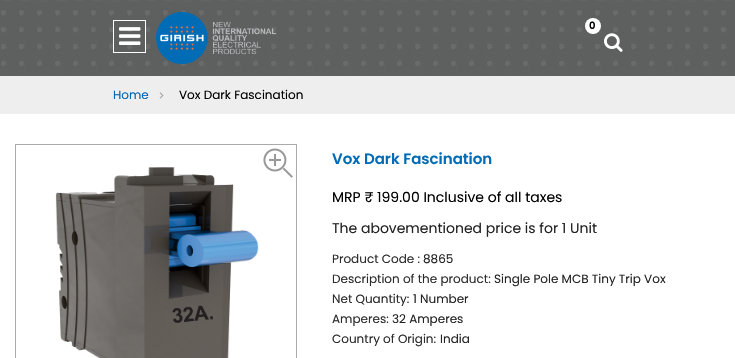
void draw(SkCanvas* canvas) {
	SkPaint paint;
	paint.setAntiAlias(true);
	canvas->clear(0xffffffff);
	paint.setColor(0xff727473);
	canvas->drawRect(SkRect::MakeXYWH(0, 0, 735, 76), paint);
	canvas->drawImageRect(SkImages::DeferredFromEncodedData(SkData::MakeFromFileName("img1.png")), SkRect::MakeXYWH(0, 0, 735, 76), SkSamplingOptions());
	paint.setStroke(true);
	paint.setStrokeWidth(1);
	paint.setColor(0xffffffff);
	canvas->drawRect(SkRect::MakeXYWH(113.5, 20.5, 32, 32), paint);
	canvas->drawImageRect(SkImages::DeferredFromEncodedData(SkData::MakeFromFileName("img2.png")), SkRect::MakeXYWH(119, 27, 22, 18), SkSamplingOptions());
	canvas->drawImageRect(SkImages::DeferredFromEncodedData(SkData::MakeFromFileName("img3.png")), SkRect::MakeXYWH(156, 12, 120, 52), SkSamplingOptions());
	paint.setStroke(false);
	canvas->drawCircle(593, 26, 8, paint);
	SkFont f1(fontMgr->matchFamilyStyle("Poppins", SkFontStyle(600, SkFontStyle::kNormal_Width, SkFontStyle::kUpright_Slant)), 10);
	f1.setSubpixel(true);
	paint.setColor(0xff000000);
	canvas->drawString("0", 589, 29, f1, paint);
	canvas->drawImageRect(SkImages::DeferredFromEncodedData(SkData::MakeFromFileName("img4.png")), SkRect::MakeXYWH(604, 33, 19, 19), SkSamplingOptions());
	paint.setColor(0xffefeeee);
	canvas->drawRect(SkRect::MakeXYWH(0, 76, 735, 38), paint);
	SkFont f2(fontMgr->matchFamilyStyle("Poppins", SkFontStyle::Normal()), 12);
	f2.setSubpixel(true);
	paint.setColor(0xff0065b3);
	canvas->drawString("Home", 113, 99, f2, paint);
	canvas->drawImageRect(SkImages::DeferredFromEncodedData(SkData::MakeFromFileName("img5.png")), SkRect::MakeXYWH(159, 92, 5, 7), SkSamplingOptions());
	paint.setColor(0xff000000);
	canvas->drawString("Vox Dark Fascination", 179, 99, f2, paint);
	paint.setStroke(true);
	paint.setColor(0xffaaaaaa);
	canvas->drawRect(SkRect::MakeXYWH(15.5, 144.5, 281, 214), paint);
	canvas->drawImageRect(SkImages::DeferredFromEncodedData(SkData::MakeFromFileName("img6.png")), SkRect::MakeXYWH(55, 167, 204, 191), SkSamplingOptions());
	canvas->drawImageRect(SkImages::DeferredFromEncodedData(SkData::MakeFromFileName("img7.png")), SkRect::MakeXYWH(263, 148, 30, 30), SkSamplingOptions());
	SkFont f3(fontMgr->matchFamilyStyle("Poppins", SkFontStyle(600, SkFontStyle::kNormal_Width, SkFontStyle::kUpright_Slant)), 15);
	f3.setSubpixel(true);
	paint.setStroke(false);
	paint.setColor(0xff016bb5);
	canvas->drawString("Vox Dark Fascination", 332, 164, f3, paint);
	SkFont f4(fontMgr->matchFamilyStyle("Poppins", SkFontStyle::Normal()), 14);
	f4.setSubpixel(true);
	paint.setColor(0xff000000);
	canvas->drawString("MRP ₹ 199.00 Inclusive of all taxes", 332, 202, f4, paint);
	paint.setColor(0xff242424);
	canvas->drawString("The abovementioned price is for 1 Unit", 332, 233, f4, paint);
	paint.setColor(0xff2c2c2c);
	canvas->drawString("Product Code :", 332, 263, f2, paint);
	paint.setColor(0xff242424);
	canvas->drawString("8865", 423, 263, f2, paint);
	paint.setColor(0xff2c2c2c);
	canvas->drawString("Description of the product:", 332, 283, f2, paint);
	paint.setColor(0xff242424);
	canvas->drawString("Single Pole MCB Tiny Trip Vox", 494, 283, f2, paint);
	paint.setColor(0xff2c2c2c);
	canvas->drawString("Net Quantity:", 332, 303, f2, paint);
	paint.setColor(0xff242424);
	canvas->drawString("1 Number", 413, 303, f2, paint);
	paint.setColor(0xff2c2c2c);
	canvas->drawString("Amperes:", 332, 323, f2, paint);
	paint.setColor(0xff242424);
	canvas->drawString("32 Amperes", 392, 323, f2, paint);
	paint.setColor(0xff2c2c2c);
	canvas->drawString("Country of Origin:", 332, 343, f2, paint);
	paint.setColor(0xff242424);
	canvas->drawString("India", 440, 343, f2, paint);
}
